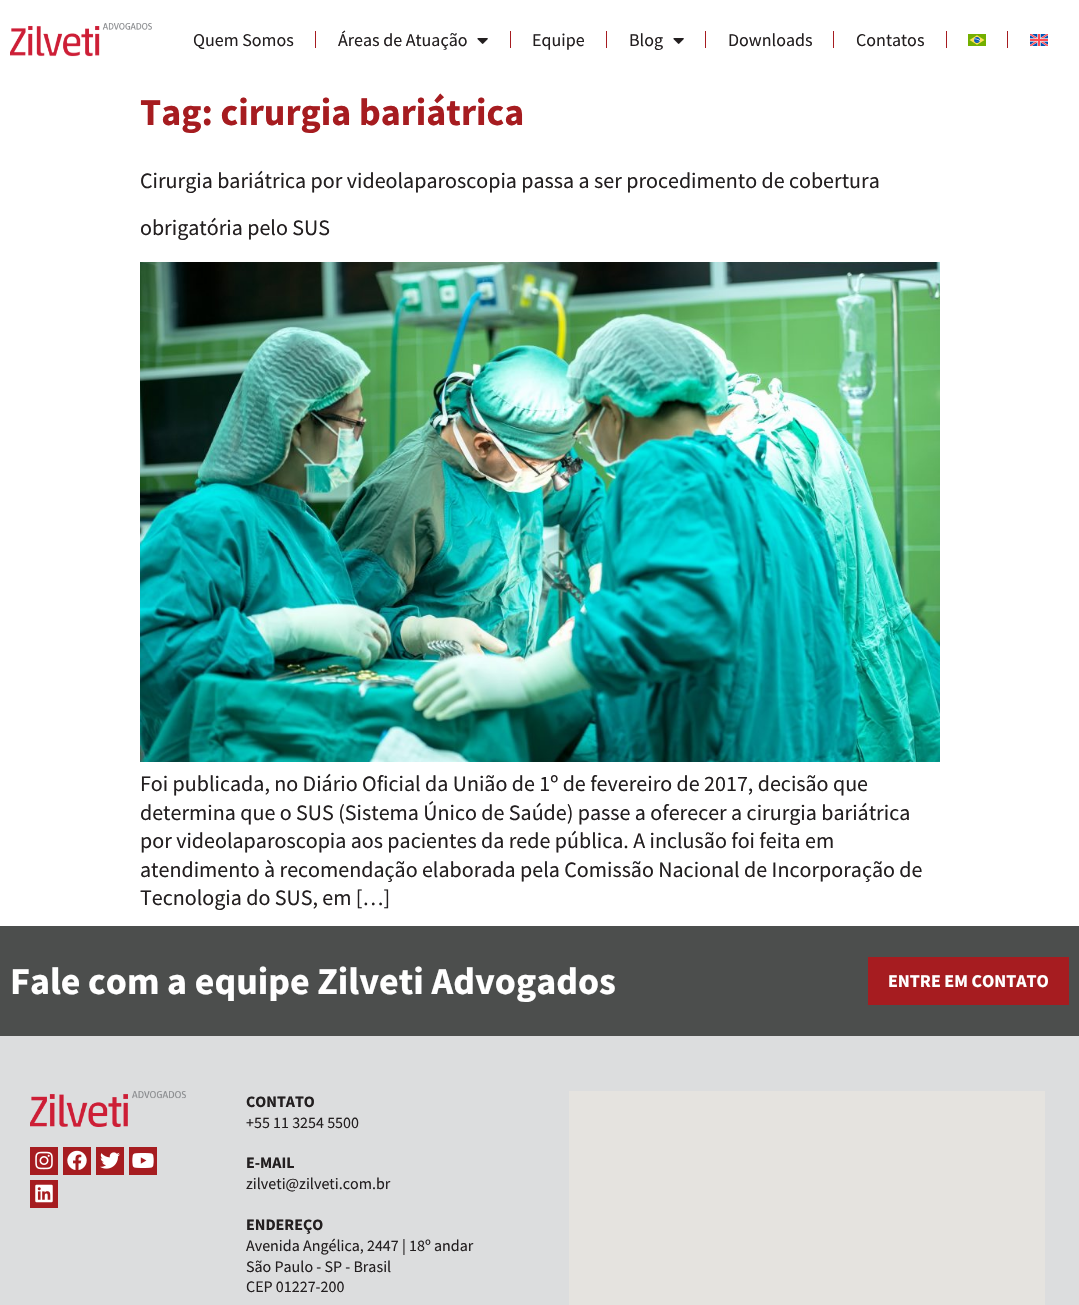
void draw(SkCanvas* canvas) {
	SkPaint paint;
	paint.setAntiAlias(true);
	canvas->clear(0xffffffff);
	canvas->drawImageRect(SkImages::DeferredFromEncodedData(SkData::MakeFromFileName("img1.png")), SkRect::MakeXYWH(10, 23, 142, 34), SkSamplingOptions());
	SkFont f1(fontMgr->matchFamilyStyle("Source Sans Pro", SkFontStyle::Normal()), 18);
	f1.setSubpixel(true);
	paint.setColor(0xff231f20);
	canvas->drawString("Quem Somos", 193, 46, f1, paint);
	paint.setColor(0xffa61c20);
	canvas->drawRect(SkRect::MakeXYWH(315, 31, 1, 17), paint);
	paint.setColor(0xff231f20);
	canvas->drawString("Áreas de Atuação", 338, 46, f1, paint);
	canvas->drawImageRect(SkImages::DeferredFromEncodedData(SkData::MakeFromFileName("img2.png")), SkRect::MakeXYWH(477, 38, 11, 6), SkSamplingOptions());
	paint.setColor(0xffa61c20);
	canvas->drawRect(SkRect::MakeXYWH(510, 31, 1, 17), paint);
	paint.setColor(0xff231f20);
	canvas->drawString("Equipe", 532, 46, f1, paint);
	paint.setColor(0xffa61c20);
	canvas->drawRect(SkRect::MakeXYWH(606, 31, 1, 17), paint);
	paint.setColor(0xff231f20);
	canvas->drawString("Blog", 629, 46, f1, paint);
	canvas->drawImageRect(SkImages::DeferredFromEncodedData(SkData::MakeFromFileName("img2.png")), SkRect::MakeXYWH(673, 38, 11, 6), SkSamplingOptions());
	paint.setColor(0xffa61c20);
	canvas->drawRect(SkRect::MakeXYWH(705, 31, 1, 17), paint);
	paint.setColor(0xff231f20);
	canvas->drawString("Downloads", 728, 46, f1, paint);
	paint.setColor(0xffa61c20);
	canvas->drawRect(SkRect::MakeXYWH(833, 31, 1, 17), paint);
	paint.setColor(0xff231f20);
	canvas->drawString("Contatos", 856, 46, f1, paint);
	paint.setColor(0xffa61c20);
	canvas->drawRect(SkRect::MakeXYWH(946, 31, 1, 17), paint);
	canvas->drawImageRect(SkImages::DeferredFromEncodedData(SkData::MakeFromFileName("img3.png")), SkRect::MakeXYWH(968, 34, 18, 12), SkSamplingOptions());
	canvas->drawRect(SkRect::MakeXYWH(1007, 31, 1, 17), paint);
	canvas->drawImageRect(SkImages::DeferredFromEncodedData(SkData::MakeFromFileName("img4.png")), SkRect::MakeXYWH(1030, 34, 18, 12), SkSamplingOptions());
	SkFont f2(fontMgr->matchFamilyStyle("Source Sans Pro", SkFontStyle::Bold()), 38);
	f2.setSubpixel(true);
	canvas->drawString("Tag: cirurgia bariátrica", 140, 125, f2, paint);
	SkFont f3(fontMgr->matchFamilyStyle("Source Sans Pro", SkFontStyle::Normal()), 22);
	f3.setSubpixel(true);
	paint.setColor(0xff231f20);
	canvas->drawString("Cirurgia bariátrica por videolaparoscopia passa a ser procedimento de cobertura", 140, 188, f3, paint);
	canvas->drawString("obrigatória pelo SUS", 140, 235, f3, paint);
	canvas->drawImageRect(SkImages::DeferredFromEncodedData(SkData::MakeFromFileName("img5.png")), SkRect::MakeXYWH(140, 262, 800, 500), SkSamplingOptions());
	canvas->drawString("Foi publicada, no Diário Oficial da União de 1º de fevereiro de 2017, decisão que", 140, 791, f3, paint);
	canvas->drawString("determina que o SUS (Sistema Único de Saúde) passe a oferecer a cirurgia bariátrica", 140, 820, f3, paint);
	canvas->drawString("por videolaparoscopia aos pacientes da rede pública. A inclusão foi feita em", 140, 848, f3, paint);
	canvas->drawString("atendimento à recomendação elaborada pela Comissão Nacional de Incorporação de", 140, 877, f3, paint);
	canvas->drawString("Tecnologia do SUS, em […]", 140, 905, f3, paint);
	paint.setColor(0xff4c4e4d);
	canvas->drawRect(SkRect::MakeXYWH(0, 926, 1079, 110), paint);
	paint.setColor(0xffffffff);
	canvas->drawString("Fale com a equipe Zilveti Advogados", 10, 994, f2, paint);
	paint.setColor(0xffa61c20);
	canvas->drawRect(SkRect::MakeXYWH(868, 957, 201, 48), paint);
	SkFont f4(fontMgr->matchFamilyStyle("Source Sans Pro", SkFontStyle::Bold()), 18);
	f4.setSubpixel(true);
	paint.setColor(0xffffffff);
	canvas->drawString("ENTRE EM CONTATO", 888, 987, f4, paint);
	paint.setColor(0xffdcddde);
	canvas->drawRect(SkRect::MakeXYWH(0, 1036, 1079, 269), paint);
	canvas->drawImageRect(SkImages::DeferredFromEncodedData(SkData::MakeFromFileName("img6.png")), SkRect::MakeXYWH(30, 1091, 156, 36), SkSamplingOptions());
	paint.setColor(0xffa61c20);
	canvas->drawRect(SkRect::MakeXYWH(30, 1147, 28, 28), paint);
	canvas->drawImageRect(SkImages::DeferredFromEncodedData(SkData::MakeFromFileName("img7.png")), SkRect::MakeXYWH(35, 1151, 18, 19), SkSamplingOptions());
	canvas->drawRect(SkRect::MakeXYWH(63, 1147, 28, 28), paint);
	canvas->drawImageRect(SkImages::DeferredFromEncodedData(SkData::MakeFromFileName("img8.png")), SkRect::MakeXYWH(67, 1150, 20, 20), SkSamplingOptions());
	canvas->drawRect(SkRect::MakeXYWH(96, 1147, 28, 28), paint);
	canvas->drawImageRect(SkImages::DeferredFromEncodedData(SkData::MakeFromFileName("img9.png")), SkRect::MakeXYWH(100, 1152, 20, 17), SkSamplingOptions());
	canvas->drawRect(SkRect::MakeXYWH(129, 1147, 28, 28), paint);
	canvas->drawImageRect(SkImages::DeferredFromEncodedData(SkData::MakeFromFileName("img10.png")), SkRect::MakeXYWH(132, 1153, 22, 15), SkSamplingOptions());
	canvas->drawRect(SkRect::MakeXYWH(30, 1180, 28, 28), paint);
	canvas->drawImageRect(SkImages::DeferredFromEncodedData(SkData::MakeFromFileName("img11.png")), SkRect::MakeXYWH(35, 1184, 18, 19), SkSamplingOptions());
	SkFont f5(fontMgr->matchFamilyStyle("Source Sans Pro", SkFontStyle::Bold()), 16);
	f5.setSubpixel(true);
	paint.setColor(0xff231f20);
	canvas->drawString("CONTATO", 246, 1107, f5, paint);
	SkFont f6(fontMgr->matchFamilyStyle("Source Sans Pro", SkFontStyle::Normal()), 16);
	f6.setSubpixel(true);
	canvas->drawString("+55 11 3254 5500", 246, 1128, f6, paint);
	canvas->drawString("E-MAIL", 246, 1168, f5, paint);
	canvas->drawString("zilveti@zilveti.com.br", 246, 1189, f6, paint);
	canvas->drawString("ENDEREÇO", 246, 1230, f5, paint);
	canvas->drawString("Avenida Angélica, 2447 | 18º andar", 246, 1251, f6, paint);
	canvas->drawString("São Paulo - SP - Brasil", 246, 1272, f6, paint);
	canvas->drawString("CEP 01227-200", 246, 1292, f6, paint);
	paint.setColor(0xffe5e3df);
	canvas->drawRect(SkRect::MakeXYWH(569, 1091, 476, 214), paint);
}
